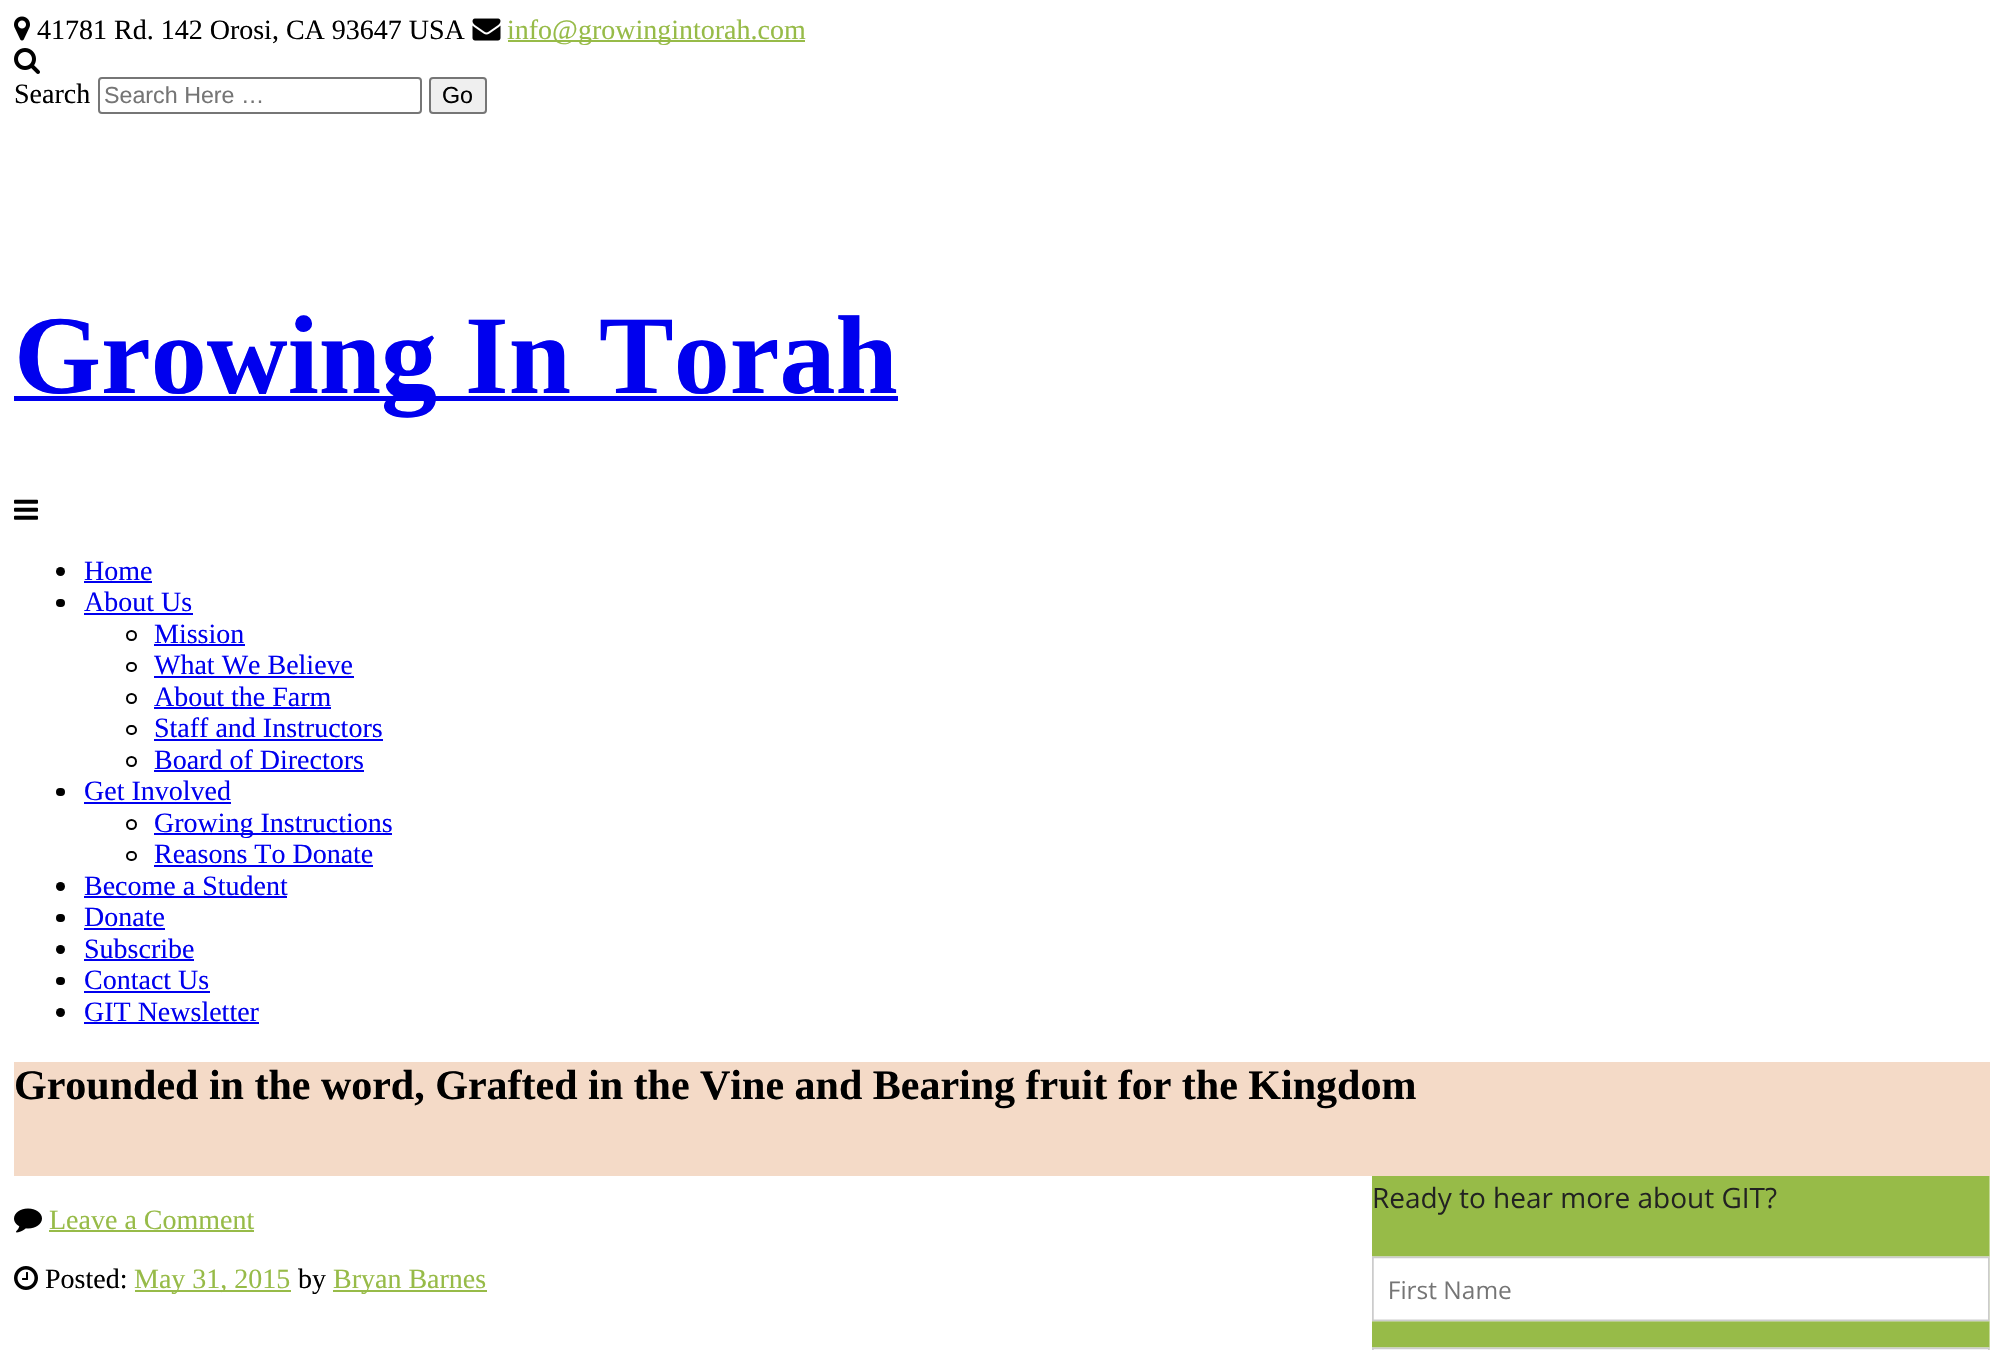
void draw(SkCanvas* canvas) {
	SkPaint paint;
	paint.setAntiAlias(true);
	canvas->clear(0xffffffff);
	canvas->drawImageRect(SkImages::DeferredFromEncodedData(SkData::MakeFromFileName("img1.png")), SkRect::MakeXYWH(14, 16, 16, 25), SkSamplingOptions());
	SkFont f1(fontMgr->matchFamilyStyle("Liberation Serif", SkFontStyle::Normal()), 28);
	f1.setSubpixel(true);
	paint.setColor(0xff000000);
	canvas->drawString("41781 Rd. 142 Orosi, CA 93647 USA", 37, 39, f1, paint);
	canvas->drawImageRect(SkImages::DeferredFromEncodedData(SkData::MakeFromFileName("img2.png")), SkRect::MakeXYWH(472, 18, 29, 23), SkSamplingOptions());
	paint.setColor(0xff97bb48);
	canvas->drawRect(SkRect::MakeXYWH(508, 40, 297, 2), paint);
	canvas->drawString("info@growingintorah.com", 507, 39, f1, paint);
	canvas->drawImageRect(SkImages::DeferredFromEncodedData(SkData::MakeFromFileName("img3.png")), SkRect::MakeXYWH(14, 48, 26, 26), SkSamplingOptions());
	paint.setColor(0xff000000);
	canvas->drawString("Search", 14, 103, f1, paint);
	paint.setStroke(true);
	paint.setStrokeWidth(2);
	paint.setColor(0xff767676);
	canvas->drawRoundRect(SkRect::MakeXYWH(99, 78, 322, 35), 3, 3, paint);
	SkFont f2(fontMgr->matchFamilyStyle("Liberation Sans", SkFontStyle::Normal()), 23.25);
	f2.setSubpixel(true);
	paint.setStroke(false);
	paint.setColor(0xff757575);
	canvas->drawString("Search Here …", 104, 103, f2, paint);
	paint.setColor(0xffefefef);
	canvas->drawRoundRect(SkRect::MakeXYWH(430, 78, 56, 35), 3, 3, paint);
	paint.setStroke(true);
	paint.setColor(0xff767676);
	canvas->drawRoundRect(SkRect::MakeXYWH(430, 78, 56, 35), 3, 3, paint);
	paint.setStroke(false);
	paint.setColor(0xff000000);
	canvas->drawString("Go", 442, 103, f2, paint);
	paint.setColor(0xff0000ee);
	canvas->drawRect(SkRect::MakeXYWH(14, 396, 884, 5), paint);
	SkFont f3(fontMgr->matchFamilyStyle("Liberation Serif", SkFontStyle::Bold()), 112);
	f3.setSubpixel(true);
	canvas->drawString("Growing In Torah", 14, 393, f3, paint);
	canvas->drawImageRect(SkImages::DeferredFromEncodedData(SkData::MakeFromFileName("img4.png")), SkRect::MakeXYWH(14, 499, 24, 21), SkSamplingOptions());
	paint.setColor(0xff000000);
	canvas->drawCircle(60.5, 571.5, 4.5, paint);
	paint.setColor(0xff0000ee);
	canvas->drawString("Home", 84, 580, f1, paint);
	canvas->drawRect(SkRect::MakeXYWH(84, 581, 68, 2), paint);
	paint.setColor(0xff000000);
	canvas->drawRoundRect(SkRect::MakeXYWH(56, 599, 9, 8), 4, 4, paint);
	paint.setColor(0xff0000ee);
	canvas->drawString("About Us", 84, 611, f1, paint);
	canvas->drawRect(SkRect::MakeXYWH(84, 613, 109, 2), paint);
	paint.setStroke(true);
	paint.setColor(0xff000000);
	canvas->drawCircle(131.5, 635.5, 4.5, paint);
	paint.setStroke(false);
	paint.setColor(0xff0000ee);
	canvas->drawString("Mission", 154, 643, f1, paint);
	canvas->drawRect(SkRect::MakeXYWH(154, 644, 91, 2), paint);
	paint.setStroke(true);
	paint.setColor(0xff000000);
	canvas->drawRoundRect(SkRect::MakeXYWH(127, 663, 9, 8), 4, 4, paint);
	paint.setStroke(false);
	paint.setColor(0xff0000ee);
	canvas->drawString("What We Believe", 154, 674, f1, paint);
	canvas->drawRect(SkRect::MakeXYWH(154, 676, 200, 2), paint);
	paint.setStroke(true);
	paint.setColor(0xff000000);
	canvas->drawCircle(131.5, 698.5, 4.5, paint);
	paint.setStroke(false);
	paint.setColor(0xff0000ee);
	canvas->drawString("About the Farm", 154, 706, f1, paint);
	canvas->drawRect(SkRect::MakeXYWH(154, 707, 177, 2), paint);
	paint.setStroke(true);
	paint.setColor(0xff000000);
	canvas->drawRoundRect(SkRect::MakeXYWH(127, 726, 9, 8), 4, 4, paint);
	paint.setStroke(false);
	paint.setColor(0xff0000ee);
	canvas->drawString("Staff and Instructors", 154, 737, f1, paint);
	canvas->drawRect(SkRect::MakeXYWH(154, 739, 229, 2), paint);
	paint.setStroke(true);
	paint.setColor(0xff000000);
	canvas->drawCircle(131.5, 761.5, 4.5, paint);
	paint.setStroke(false);
	paint.setColor(0xff0000ee);
	canvas->drawString("Board of Directors", 154, 769, f1, paint);
	canvas->drawRect(SkRect::MakeXYWH(154, 770, 210, 2), paint);
	paint.setColor(0xff000000);
	canvas->drawRoundRect(SkRect::MakeXYWH(56, 788, 9, 8), 4, 4, paint);
	paint.setColor(0xff0000ee);
	canvas->drawString("Get Involved", 84, 800, f1, paint);
	canvas->drawRect(SkRect::MakeXYWH(84, 802, 147, 2), paint);
	paint.setStroke(true);
	paint.setColor(0xff000000);
	canvas->drawCircle(131.5, 824.5, 4.5, paint);
	paint.setStroke(false);
	paint.setColor(0xff0000ee);
	canvas->drawRect(SkRect::MakeXYWH(154, 833, 238, 2), paint);
	canvas->drawString("Growing Instructions", 154, 832, f1, paint);
	paint.setStroke(true);
	paint.setColor(0xff000000);
	canvas->drawRoundRect(SkRect::MakeXYWH(127, 852, 9, 8), 4, 4, paint);
	paint.setStroke(false);
	paint.setColor(0xff0000ee);
	canvas->drawString("Reasons To Donate", 154, 863, f1, paint);
	canvas->drawRect(SkRect::MakeXYWH(154, 865, 219, 2), paint);
	paint.setColor(0xff000000);
	canvas->drawCircle(60.5, 886.5, 4.5, paint);
	paint.setColor(0xff0000ee);
	canvas->drawString("Become a Student", 84, 895, f1, paint);
	canvas->drawRect(SkRect::MakeXYWH(84, 896, 203, 2), paint);
	paint.setColor(0xff000000);
	canvas->drawRoundRect(SkRect::MakeXYWH(56, 914, 9, 8), 4, 4, paint);
	paint.setColor(0xff0000ee);
	canvas->drawString("Donate", 84, 926, f1, paint);
	canvas->drawRect(SkRect::MakeXYWH(84, 928, 81, 2), paint);
	paint.setColor(0xff000000);
	canvas->drawCircle(60.5, 949.5, 4.5, paint);
	paint.setColor(0xff0000ee);
	canvas->drawString("Subscribe", 84, 958, f1, paint);
	canvas->drawRect(SkRect::MakeXYWH(84, 959, 110, 2), paint);
	paint.setColor(0xff000000);
	canvas->drawRoundRect(SkRect::MakeXYWH(56, 977, 9, 8), 4, 4, paint);
	paint.setColor(0xff0000ee);
	canvas->drawString("Contact Us", 84, 989, f1, paint);
	canvas->drawRect(SkRect::MakeXYWH(84, 991, 126, 2), paint);
	paint.setColor(0xff000000);
	canvas->drawCircle(60.5, 1012.5, 4.5, paint);
	paint.setColor(0xff0000ee);
	canvas->drawString("GIT Newsletter", 84, 1021, f1, paint);
	canvas->drawRect(SkRect::MakeXYWH(84, 1022, 175, 2), paint);
	paint.setColor(0xfff4dac7);
	canvas->drawRect(SkRect::MakeXYWH(14, 1062, 1976, 114), paint);
	SkFont f4(fontMgr->matchFamilyStyle("Liberation Serif", SkFontStyle::Bold()), 42);
	f4.setSubpixel(true);
	paint.setColor(0xff000000);
	canvas->drawString("Grounded in the word, Grafted in the Vine and Bearing fruit for the Kingdom", 14, 1099, f4, paint);
	canvas->drawImageRect(SkImages::DeferredFromEncodedData(SkData::MakeFromFileName("img5.png")), SkRect::MakeXYWH(14, 1208, 28, 25), SkSamplingOptions());
	paint.setColor(0xff97bb48);
	canvas->drawString("Leave a Comment", 49, 1229, f1, paint);
	canvas->drawRect(SkRect::MakeXYWH(49, 1230, 205, 2), paint);
	canvas->drawImageRect(SkImages::DeferredFromEncodedData(SkData::MakeFromFileName("img6.png")), SkRect::MakeXYWH(14, 1266, 24, 24), SkSamplingOptions());
	paint.setColor(0xff000000);
	canvas->drawString("Posted:", 45, 1288, f1, paint);
	paint.setColor(0xff97bb48);
	canvas->drawRect(SkRect::MakeXYWH(135, 1290, 156, 2), paint);
	canvas->drawString("May 31, 2015", 134, 1288, f1, paint);
	paint.setColor(0xff000000);
	canvas->drawString("by", 298, 1288, f1, paint);
	paint.setColor(0xff97bb48);
	canvas->drawRect(SkRect::MakeXYWH(333, 1290, 154, 2), paint);
	canvas->drawString("Bryan Barnes", 333, 1288, f1, paint);
	canvas->drawImageRect(SkImages::DeferredFromEncodedData(SkData::MakeFromFileName("img7.png")), SkRect::MakeXYWH(1372, 1176, 618, 174), SkSamplingOptions());
}
